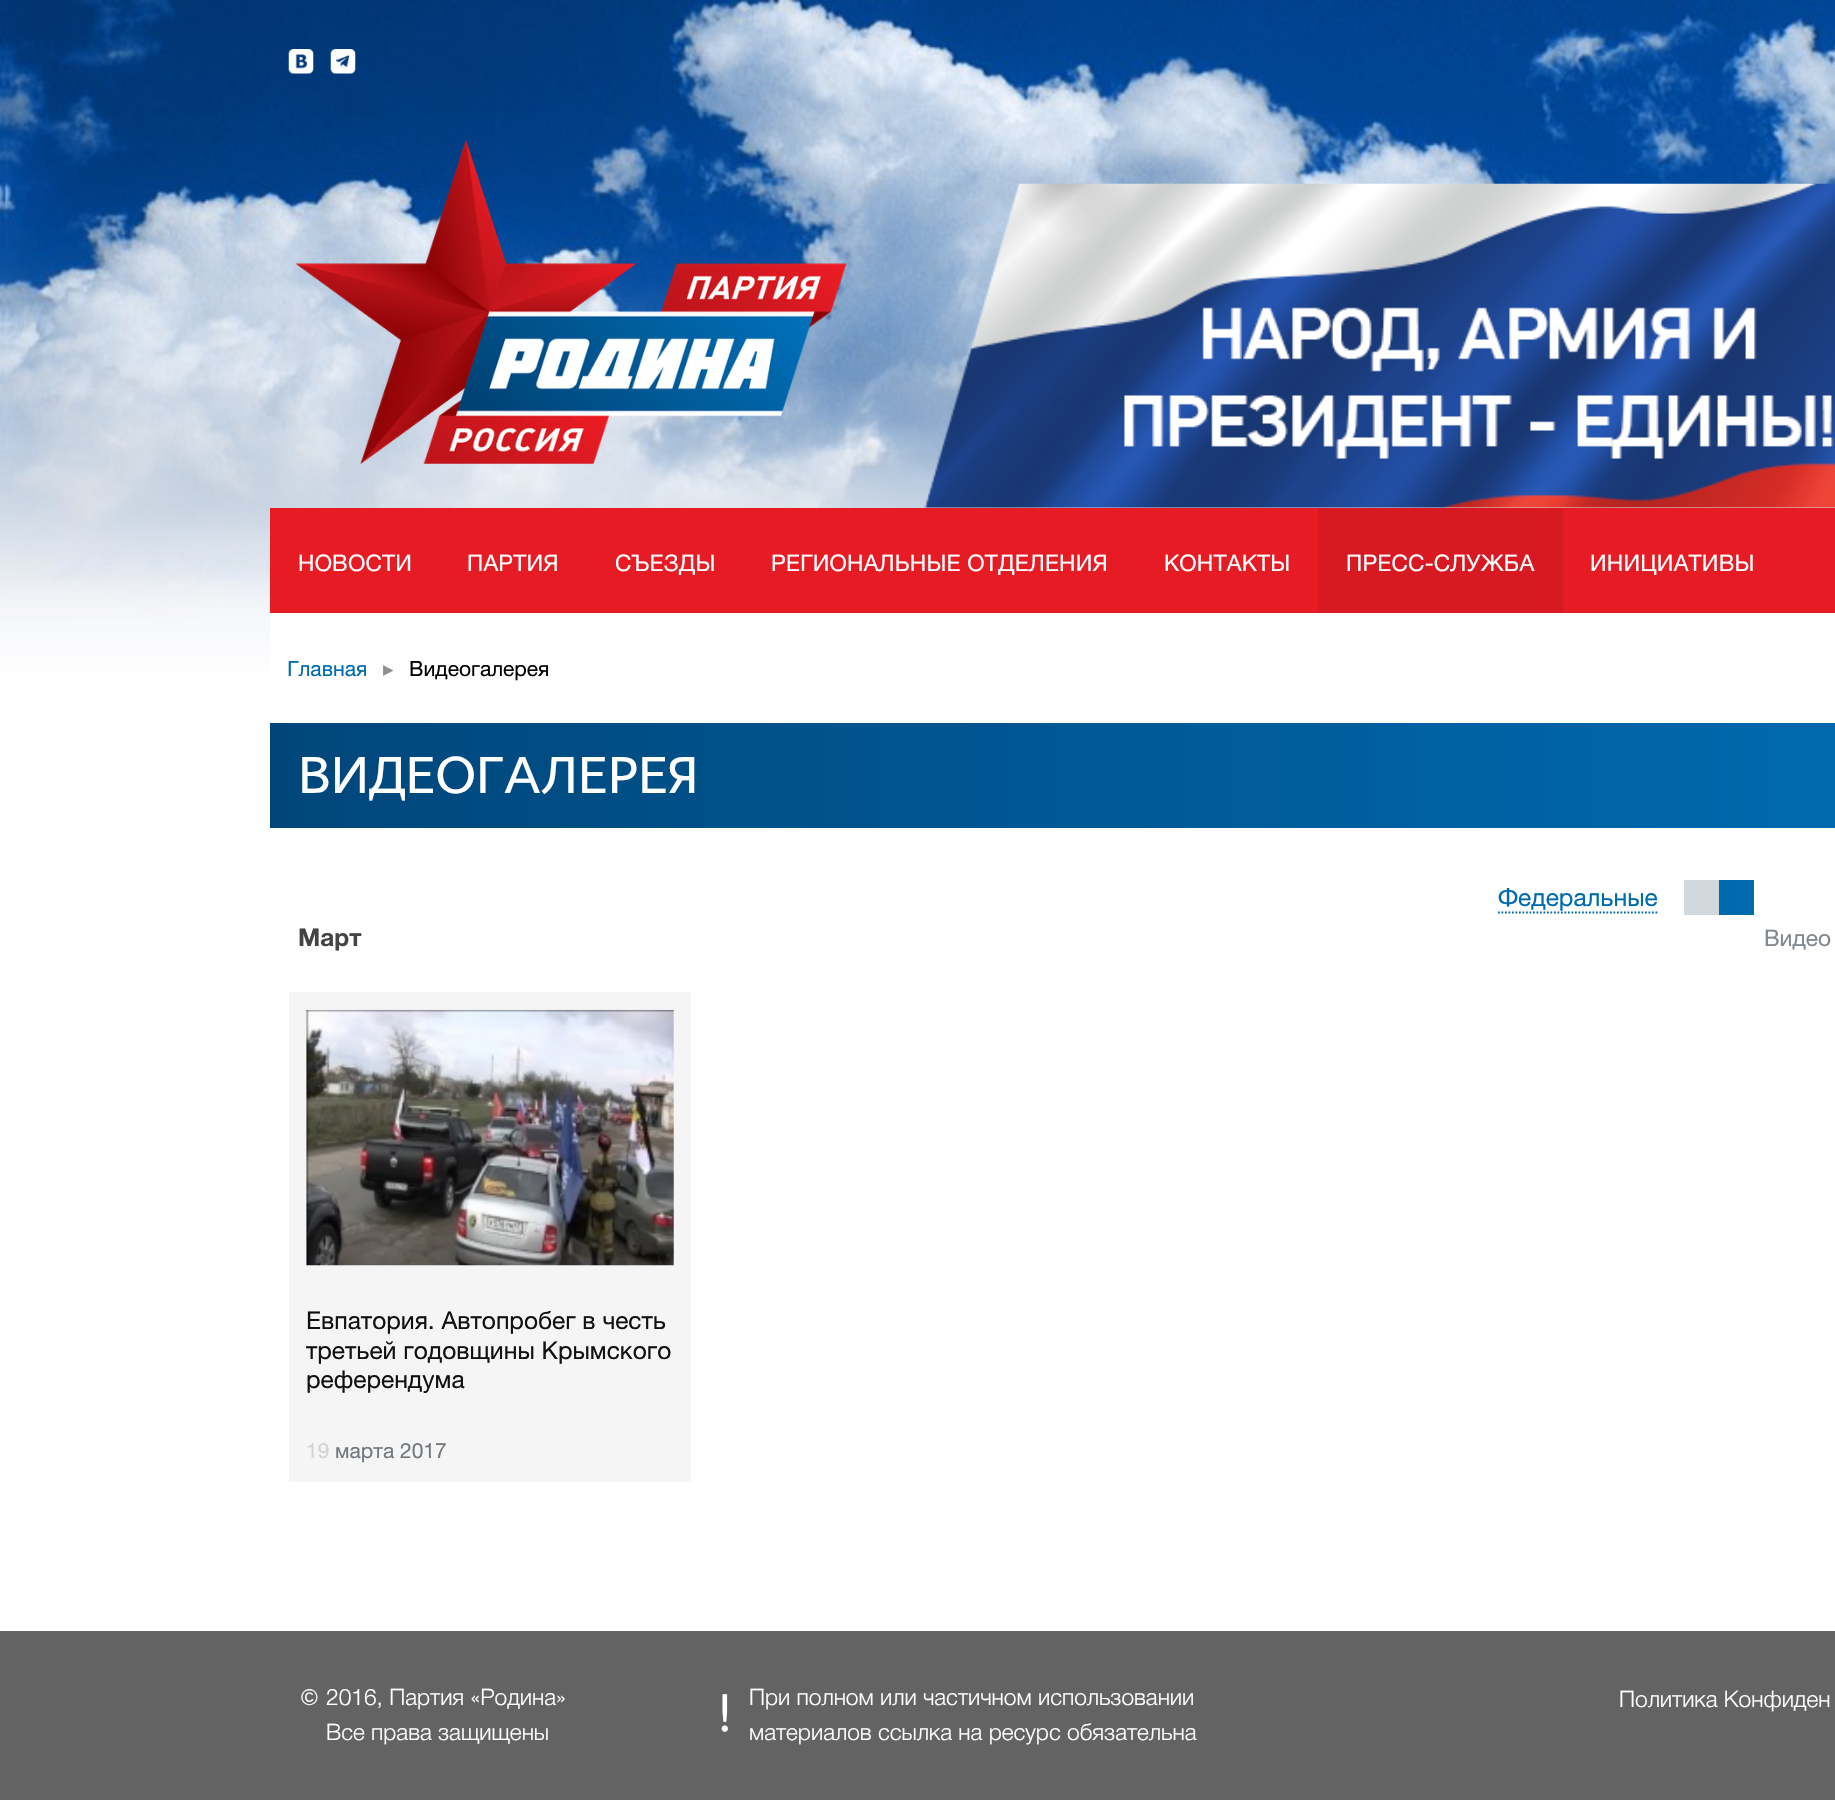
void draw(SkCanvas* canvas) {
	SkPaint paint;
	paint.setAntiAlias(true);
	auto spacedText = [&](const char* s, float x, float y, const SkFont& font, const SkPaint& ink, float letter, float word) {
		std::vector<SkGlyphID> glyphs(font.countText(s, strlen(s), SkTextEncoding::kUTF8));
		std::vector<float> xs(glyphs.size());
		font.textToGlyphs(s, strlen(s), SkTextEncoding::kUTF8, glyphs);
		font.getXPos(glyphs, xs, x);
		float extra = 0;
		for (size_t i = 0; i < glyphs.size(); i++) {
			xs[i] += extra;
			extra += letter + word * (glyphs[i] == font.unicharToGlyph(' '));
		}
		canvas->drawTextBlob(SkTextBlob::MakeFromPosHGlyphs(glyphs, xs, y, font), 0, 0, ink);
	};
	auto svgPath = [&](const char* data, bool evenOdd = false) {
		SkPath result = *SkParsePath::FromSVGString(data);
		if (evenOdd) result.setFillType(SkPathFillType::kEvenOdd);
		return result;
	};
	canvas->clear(0xffffffff);
	canvas->drawImageRect(SkImages::DeferredFromEncodedData(SkData::MakeFromFileName("img1.png")), SkRect::MakeXYWH(0, 0, 1835, 672), SkSamplingOptions());
	canvas->drawImageRect(SkImages::DeferredFromEncodedData(SkData::MakeFromFileName("img2.png")), SkRect::MakeXYWH(288, 49, 26, 25), SkSamplingOptions());
	canvas->drawImageRect(SkImages::DeferredFromEncodedData(SkData::MakeFromFileName("img3.png")), SkRect::MakeXYWH(330, 49, 26, 25), SkSamplingOptions());
	canvas->drawImageRect(SkImages::DeferredFromEncodedData(SkData::MakeFromFileName("img4.png")), SkRect::MakeXYWH(295, 140, 552, 324), SkSamplingOptions());
	canvas->drawImageRect(SkImages::DeferredFromEncodedData(SkData::MakeFromFileName("img5.png")), SkRect::MakeXYWH(924, 183, 911, 325), SkSamplingOptions());
	paint.setColor(0xffe61b23);
	canvas->drawRect(SkRect::MakeXYWH(270, 508, 1565, 105), paint);
	SkFont f1(fontMgr->matchFamilyStyle("Helvetica Neue", SkFontStyle::Normal()), 22.75);
	f1.setSubpixel(true);
	paint.setColor(0xffffffff);
	spacedText("НОВОСТИ", 298, 571, f1, paint, 0.2, 0);
	spacedText("ПАРТИЯ", 467, 571, f1, paint, 0.2, 0);
	spacedText("СЪЕЗДЫ", 615, 571, f1, paint, 0.2, 0);
	spacedText("РЕГИОНАЛЬНЫЕ ОТДЕЛЕНИЯ", 771, 571, f1, paint, 0.2, 0);
	spacedText("КОНТАКТЫ", 1164, 571, f1, paint, 0.2, 0);
	paint.setColor(0xffd91921);
	canvas->drawRect(SkRect::MakeXYWH(1318, 508, 245, 105), paint);
	paint.setColor(0xffffffff);
	spacedText("ПРЕСС-СЛУЖБА", 1346, 571, f1, paint, 0.2, 0);
	spacedText("ИНИЦИАТИВЫ", 1590, 571, f1, paint, 0.2, 0);
	canvas->drawRect(SkRect::MakeXYWH(270, 613, 1565, 59), paint);
	SkFont f2(fontMgr->matchFamilyStyle("Helvetica Neue", SkFontStyle::Normal()), 21);
	f2.setSubpixel(true);
	paint.setColor(0xff006aaf);
	canvas->drawString("Главная", 287, 676, f2, paint);
	SkFont f3(fontMgr->matchFamilyStyle("DejaVu Sans", SkFontStyle::Normal()), 21);
	f3.setSubpixel(true);
	paint.setColor(0xff8f8f8f);
	canvas->drawString("▸", 383, 676, f3, paint);
	paint.setColor(0xff000000);
	canvas->drawString("Видеогалерея", 409, 676, f2, paint);
	{
		const SkColor colors[] = {0xff00467a, 0xff006cb3};
		const float stops[] = {0, 1};
		const SkPoint ends[] = {{270, 775}, {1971, 775}};
		paint.setShader(SkGradientShader::MakeLinear(ends, colors, stops, 2, SkTileMode::kClamp));
		paint.setAlpha(255);
	}
	canvas->drawRect(SkRect::MakeXYWH(270, 723, 1565, 105), paint);
	SkFont f4(fontMgr->matchFamilyStyle("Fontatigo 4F", SkFontStyle::Normal()), 52.5);
	f4.setSubpixel(true);
	paint.setShader(nullptr);
	paint.setColor(0xffffffff);
	canvas->drawString("ВИДЕОГАЛЕРЕЯ", 298, 793, f4, paint);
	paint.setStroke(true);
	paint.setStrokeWidth(1.8);
	paint.setColor(0xff006aaf);
	paint.setPathEffect(SkDashPathEffect::Make({{1.75f, 1.75f}}, 0));
	canvas->drawPath(svgPath("M1498 912.5H1659"), paint);
	paint.setPathEffect(nullptr);
	SkFont f5(fontMgr->matchFamilyStyle("Helvetica Neue", SkFontStyle::Normal()), 24.5);
	f5.setSubpixel(true);
	paint.setStroke(false);
	canvas->drawString("Федеральные", 1498, 906, f5, paint);
	paint.setColor(0xffd1d9df);
	canvas->drawRect(SkRect::MakeXYWH(1684, 880, 35, 35), paint);
	paint.setColor(0xff006aaf);
	canvas->drawRect(SkRect::MakeXYWH(1719, 880, 35, 35), paint);
	SkFont f6(fontMgr->matchFamilyStyle("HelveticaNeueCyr", SkFontStyle::Bold()), 24.5);
	f6.setSubpixel(true);
	paint.setColor(0xff444444);
	canvas->drawString("Март", 298, 946, f6, paint);
	paint.setColor(0xff80878e);
	canvas->drawString("Видео", 1764, 946, f1, paint);
	paint.setColor(0xfff5f5f5);
	canvas->drawRect(SkRect::MakeXYWH(289, 992, 402, 490), paint);
	canvas->drawImageRect(SkImages::DeferredFromEncodedData(SkData::MakeFromFileName("img6.png")), SkRect::MakeXYWH(306, 1009, 368, 257), SkSamplingOptions());
	paint.setColor(0xff101211);
	canvas->drawString("Евпатория. Автопробег в честь", 306, 1329, f5, paint);
	canvas->drawString("третьей годовщины Крымского", 306, 1359, f5, paint);
	canvas->drawString("референдума", 306, 1388, f5, paint);
	paint.setColor(0xffd3d3d3);
	canvas->drawString("19", 306, 1458, f2, paint);
	paint.setColor(0xff72787e);
	canvas->drawString("марта 2017", 335, 1458, f2, paint);
	paint.setColor(0xff636363);
	canvas->drawRect(SkRect::MakeXYWH(0, 1631, 1835, 169), paint);
	SkFont f7(fontMgr->matchFamilyStyle("Liberation Sans", SkFontStyle::Normal()), 22.75);
	f7.setSubpixel(true);
	paint.setColor(0xffffffff);
	canvas->drawString("©", 301, 1705, f7, paint);
	SkFont f8(fontMgr->matchFamilyStyle("HelveticaNeueCyr", SkFontStyle(300, SkFontStyle::kNormal_Width, SkFontStyle::kUpright_Slant)), 22.75);
	f8.setSubpixel(true);
	canvas->drawString("2016, Партия «Родина»", 326, 1705, f8, paint);
	canvas->drawString("Все права защищены", 326, 1740, f8, paint);
	SkFont f9(fontMgr->matchFamilyStyle("PT Sans", SkFontStyle::Normal()), 52.5);
	f9.setSubpixel(true);
	canvas->drawString("!", 716, 1731, f9, paint);
	canvas->drawString("При полном или частичном использовании", 749, 1705, f8, paint);
	canvas->drawString("материалов ссылка на ресурс обязательна", 749, 1740, f8, paint);
	canvas->drawString("Политика Конфиден", 1619, 1707, f8, paint);
}
